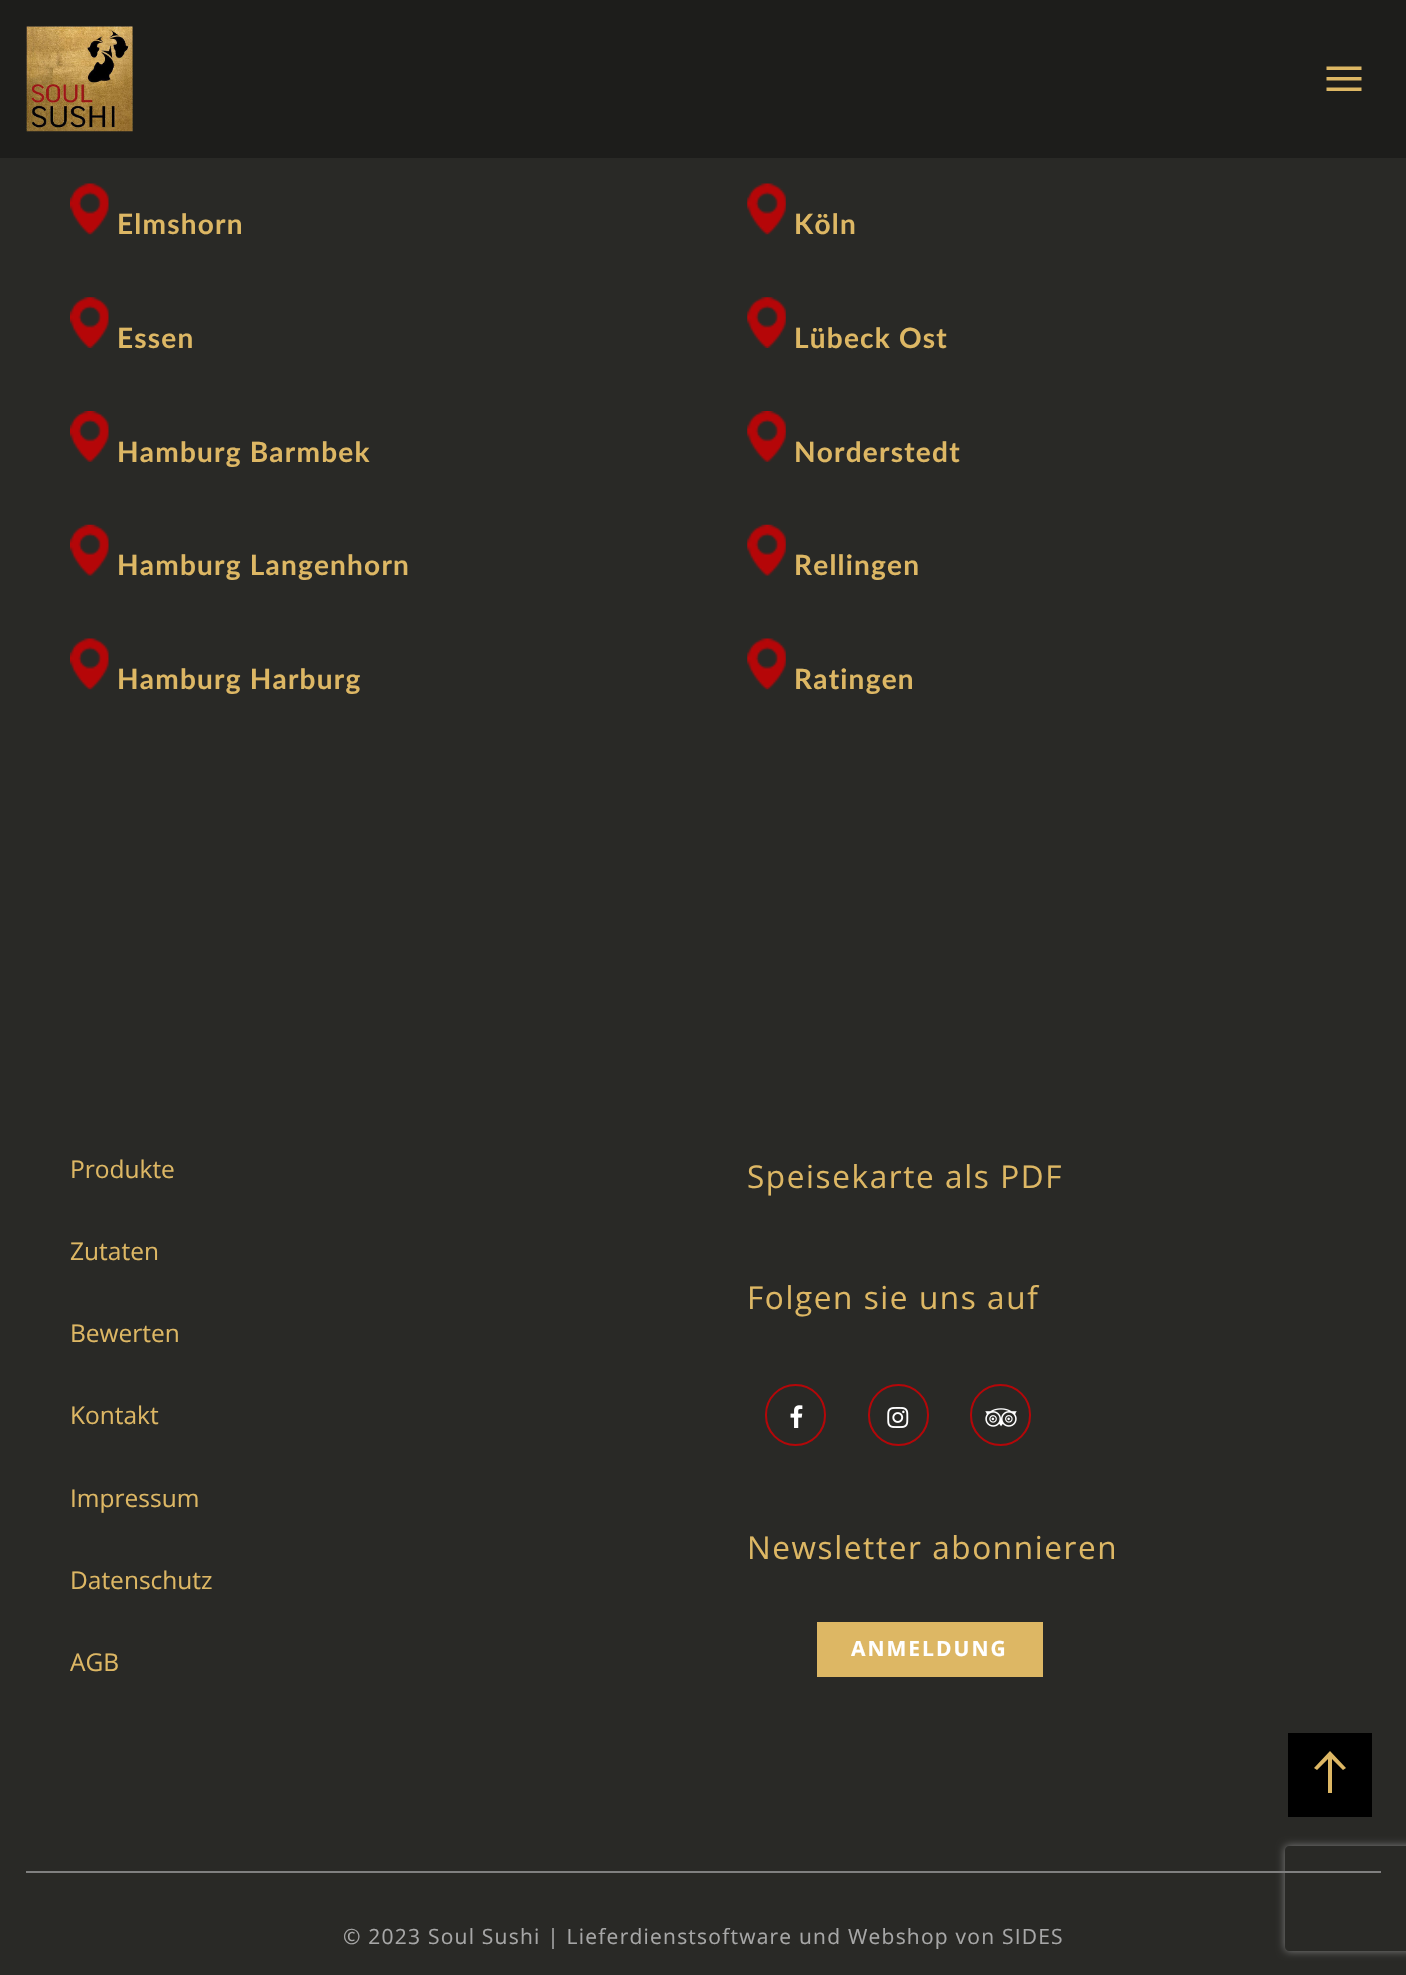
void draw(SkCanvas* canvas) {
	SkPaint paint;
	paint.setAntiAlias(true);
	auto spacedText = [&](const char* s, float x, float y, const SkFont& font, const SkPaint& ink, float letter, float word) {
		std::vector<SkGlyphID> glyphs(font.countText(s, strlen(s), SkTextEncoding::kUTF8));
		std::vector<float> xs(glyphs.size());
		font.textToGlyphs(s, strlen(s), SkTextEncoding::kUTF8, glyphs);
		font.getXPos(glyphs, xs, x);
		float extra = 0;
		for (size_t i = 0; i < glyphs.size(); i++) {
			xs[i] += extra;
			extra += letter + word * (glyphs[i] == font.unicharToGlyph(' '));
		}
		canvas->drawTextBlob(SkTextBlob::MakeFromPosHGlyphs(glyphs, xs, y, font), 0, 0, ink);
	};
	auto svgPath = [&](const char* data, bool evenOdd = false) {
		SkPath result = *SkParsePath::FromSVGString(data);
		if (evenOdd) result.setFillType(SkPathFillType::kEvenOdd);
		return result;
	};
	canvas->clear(0xff292926);
	paint.setColor(0xff1d1d1b);
	canvas->drawRect(SkRect::MakeXYWH(0, 0, 1406, 158), paint);
	canvas->drawImageRect(SkImages::DeferredFromEncodedData(SkData::MakeFromFileName("img1.png")), SkRect::MakeXYWH(26, 26, 107, 106), SkSamplingOptions());
	paint.setColor(0xffddb764);
	canvas->drawPath(svgPath("M1326.5 77H1361.5V80.5H1326.5ZM1326.5 66.5H1361.5V70H1326.5ZM1326.5 87.5H1361.5V91H1326.5Z"), paint);
	canvas->drawImageRect(SkImages::DeferredFromEncodedData(SkData::MakeFromFileName("img2.png")), SkRect::MakeXYWH(70, 183, 39, 52), SkSamplingOptions());
	SkFont f1(fontMgr->matchFamilyStyle("Lato", SkFontStyle::Bold()), 28);
	f1.setSubpixel(true);
	spacedText("Elmshorn", 117, 234, f1, paint, 1.22, 0);
	canvas->drawImageRect(SkImages::DeferredFromEncodedData(SkData::MakeFromFileName("img3.png")), SkRect::MakeXYWH(70, 297, 39, 51), SkSamplingOptions());
	spacedText("Essen", 117, 348, f1, paint, 1.22, 0);
	canvas->drawImageRect(SkImages::DeferredFromEncodedData(SkData::MakeFromFileName("img4.png")), SkRect::MakeXYWH(70, 411, 39, 51), SkSamplingOptions());
	spacedText("Hamburg Barmbek", 117, 462, f1, paint, 1.22, 0);
	canvas->drawImageRect(SkImages::DeferredFromEncodedData(SkData::MakeFromFileName("img5.png")), SkRect::MakeXYWH(70, 524, 39, 52), SkSamplingOptions());
	spacedText("Hamburg Langenhorn", 117, 575, f1, paint, 1.22, 0);
	canvas->drawImageRect(SkImages::DeferredFromEncodedData(SkData::MakeFromFileName("img2.png")), SkRect::MakeXYWH(70, 638, 39, 52), SkSamplingOptions());
	spacedText("Hamburg Harburg", 117, 689, f1, paint, 1.22, 0);
	canvas->drawImageRect(SkImages::DeferredFromEncodedData(SkData::MakeFromFileName("img6.png")), SkRect::MakeXYWH(747, 183, 39, 52), SkSamplingOptions());
	spacedText("Köln", 794, 234, f1, paint, 1.22, 0);
	canvas->drawImageRect(SkImages::DeferredFromEncodedData(SkData::MakeFromFileName("img7.png")), SkRect::MakeXYWH(747, 297, 39, 51), SkSamplingOptions());
	spacedText("Lübeck Ost", 794, 348, f1, paint, 1.22, 0);
	canvas->drawImageRect(SkImages::DeferredFromEncodedData(SkData::MakeFromFileName("img8.png")), SkRect::MakeXYWH(747, 411, 39, 51), SkSamplingOptions());
	spacedText("Norderstedt", 794, 462, f1, paint, 1.22, 0);
	canvas->drawImageRect(SkImages::DeferredFromEncodedData(SkData::MakeFromFileName("img9.png")), SkRect::MakeXYWH(747, 524, 39, 52), SkSamplingOptions());
	spacedText("Rellingen", 794, 575, f1, paint, 1.22, 0);
	canvas->drawImageRect(SkImages::DeferredFromEncodedData(SkData::MakeFromFileName("img6.png")), SkRect::MakeXYWH(747, 638, 39, 52), SkSamplingOptions());
	spacedText("Ratingen", 794, 689, f1, paint, 1.22, 0);
	SkFont f2(fontMgr->matchFamilyStyle("Open Sans", SkFontStyle::Normal()), 24.5);
	f2.setSubpixel(true);
	canvas->drawString("Produkte", 70, 1178, f2, paint);
	canvas->drawString("Zutaten", 70, 1260, f2, paint);
	canvas->drawString("Bewerten", 70, 1342, f2, paint);
	canvas->drawString("Kontakt", 70, 1424, f2, paint);
	canvas->drawString("Impressum", 70, 1507, f2, paint);
	canvas->drawString("Datenschutz", 70, 1589, f2, paint);
	canvas->drawString("AGB", 70, 1671, f2, paint);
	SkFont f3(fontMgr->matchFamilyStyle("Open Sans", SkFontStyle::Normal()), 31.5);
	f3.setSubpixel(true);
	spacedText("Speisekarte als PDF", 747, 1188, f3, paint, 1.6, 0);
	spacedText("Folgen sie uns auf", 747, 1309, f3, paint, 1.6, 0);
	paint.setStroke(true);
	paint.setStrokeWidth(2);
	paint.setColor(0xffb50608);
	canvas->drawRoundRect(SkRect::MakeXYWH(766, 1385, 59, 60), 29.5, 29.5, paint);
	canvas->drawImageRect(SkImages::DeferredFromEncodedData(SkData::MakeFromFileName("img10.png")), SkRect::MakeXYWH(790, 1405, 13, 23), SkSamplingOptions());
	canvas->drawRoundRect(SkRect::MakeXYWH(869, 1385, 59, 60), 29.5, 29.5, paint);
	canvas->drawImageRect(SkImages::DeferredFromEncodedData(SkData::MakeFromFileName("img11.png")), SkRect::MakeXYWH(887, 1407, 22, 21), SkSamplingOptions());
	canvas->drawRoundRect(SkRect::MakeXYWH(971, 1385, 59, 60), 29.5, 29.5, paint);
	canvas->drawImageRect(SkImages::DeferredFromEncodedData(SkData::MakeFromFileName("img12.png")), SkRect::MakeXYWH(985, 1408, 32, 19), SkSamplingOptions());
	paint.setStroke(false);
	paint.setColor(0xffddb764);
	spacedText("Newsletter abonnieren", 747, 1559, f3, paint, 1.6, 0);
	canvas->drawRect(SkRect::MakeXYWH(817, 1622, 226, 55), paint);
	SkFont f4(fontMgr->matchFamilyStyle("Open Sans", SkFontStyle::Bold()), 21);
	f4.setSubpixel(true);
	paint.setColor(0xffffffff);
	spacedText("ANMELDUNG", 851, 1656, f4, paint, 2, 0);
	canvas->save();
	canvas->clipPath(svgPath("M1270 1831H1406V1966H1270ZM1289 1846H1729C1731 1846 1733 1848 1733 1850V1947C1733 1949 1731 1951 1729 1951H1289C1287 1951 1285 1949 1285 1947V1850C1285 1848 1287 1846 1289 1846Z", true), true);
	paint.setColor(0xff808080);
	paint.setMaskFilter(SkMaskFilter::MakeBlur(kNormal_SkBlurStyle, 4.5));
	canvas->drawRoundRect(SkRect::MakeXYWH(1285, 1846, 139, 105), 4, 4, paint);
	paint.setMaskFilter(nullptr);
	canvas->restore();
	canvas->drawRect(SkRect::MakeXYWH(26, 1871, 1355, 2), paint);
	SkFont f5(fontMgr->matchFamilyStyle("Open Sans", SkFontStyle::Normal()), 21);
	f5.setSubpixel(true);
	paint.setColor(0xffa7a7a7);
	spacedText("© 2023 Soul Sushi | Lieferdienstsoftware und Webshop von SIDES", 343, 1944, f5, paint, 1.22, 0);
	paint.setColor(0xff000000);
	canvas->drawRect(SkRect::MakeXYWH(1288, 1733, 84, 84), paint);
	paint.setColor(0xffddb764);
	canvas->drawPath(svgPath("M1332 1793V1759L1343 1770L1346 1768L1330 1751L1314 1768L1317 1770L1328 1759V1793Z"), paint);
}
